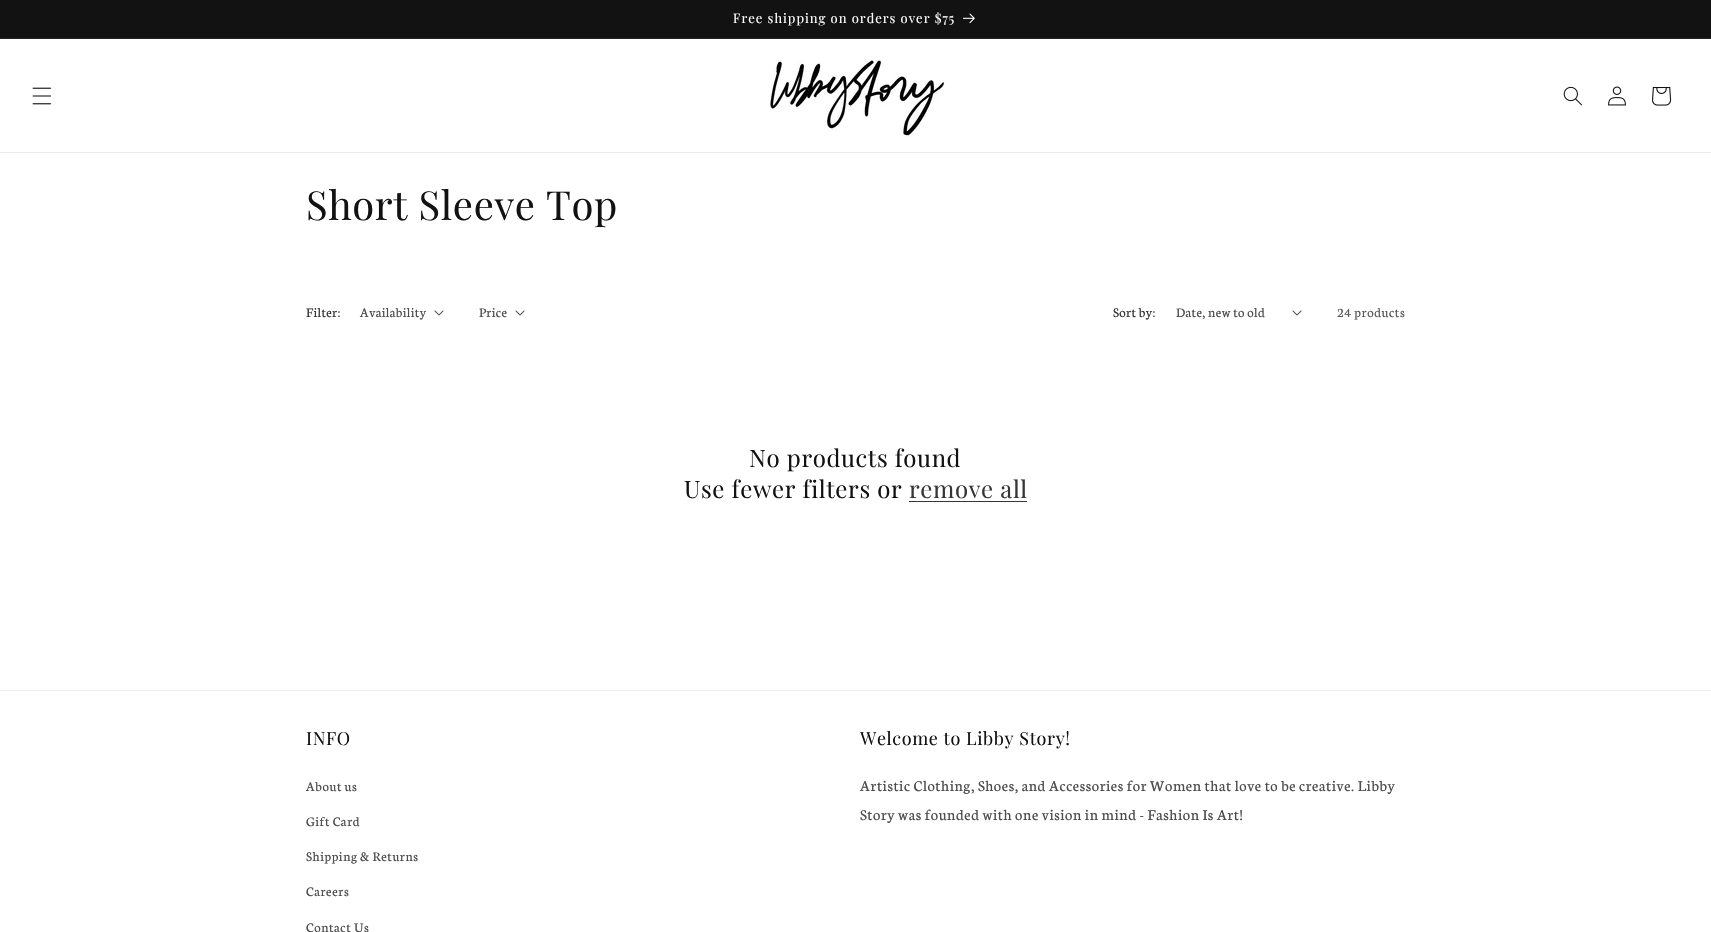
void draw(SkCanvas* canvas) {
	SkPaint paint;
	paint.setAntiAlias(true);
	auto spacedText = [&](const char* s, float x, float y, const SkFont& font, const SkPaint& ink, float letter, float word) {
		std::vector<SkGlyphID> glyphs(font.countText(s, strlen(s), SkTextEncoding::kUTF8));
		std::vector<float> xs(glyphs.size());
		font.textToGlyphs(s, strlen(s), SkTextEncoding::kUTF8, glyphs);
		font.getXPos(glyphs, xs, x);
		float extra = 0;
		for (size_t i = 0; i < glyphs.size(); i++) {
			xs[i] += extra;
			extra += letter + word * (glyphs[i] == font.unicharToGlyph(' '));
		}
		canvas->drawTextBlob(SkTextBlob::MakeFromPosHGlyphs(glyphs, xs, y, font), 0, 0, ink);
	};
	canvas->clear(0xffffffff);
	paint.setColor(0xff121212);
	canvas->drawRect(SkRect::MakeXYWH(0, 0, 1711, 38), paint);
	paint.setColor(0xff252525);
	canvas->drawRect(SkRect::MakeXYWH(0, 38, 1711, 1), paint);
	SkFont f1(fontMgr->matchFamilyStyle("Playfair Display", SkFontStyle::Normal()), 13);
	f1.setSubpixel(true);
	paint.setColor(0xffffffff);
	spacedText("Free shipping on orders over $75", 733, 23, f1, paint, 1, 0);
	canvas->drawImageRect(SkImages::DeferredFromEncodedData(SkData::MakeFromFileName("img1.png")), SkRect::MakeXYWH(963, 13, 12, 11), SkSamplingOptions());
	paint.setColor(0xffececec);
	canvas->drawRect(SkRect::MakeXYWH(0, 152, 1711, 1), paint);
	canvas->drawImageRect(SkImages::DeferredFromEncodedData(SkData::MakeFromFileName("img2.png")), SkRect::MakeXYWH(32, 87, 20, 18), SkSamplingOptions());
	canvas->drawImageRect(SkImages::DeferredFromEncodedData(SkData::MakeFromFileName("img3.png")), SkRect::MakeXYWH(770, 59, 176, 78), SkSamplingOptions());
	canvas->drawImageRect(SkImages::DeferredFromEncodedData(SkData::MakeFromFileName("img4.png")), SkRect::MakeXYWH(1563, 86, 19, 20), SkSamplingOptions());
	canvas->drawImageRect(SkImages::DeferredFromEncodedData(SkData::MakeFromFileName("img5.png")), SkRect::MakeXYWH(1608, 86, 18, 20), SkSamplingOptions());
	canvas->drawImageRect(SkImages::DeferredFromEncodedData(SkData::MakeFromFileName("img6.png")), SkRect::MakeXYWH(1652, 87, 20, 19), SkSamplingOptions());
	SkFont f2(fontMgr->matchFamilyStyle("Playfair Display", SkFontStyle::Normal()), 40);
	f2.setSubpixel(true);
	paint.setColor(0xff121212);
	spacedText("Short Sleeve Top", 306, 220, f2, paint, 0.6, 0);
	SkFont f3(fontMgr->matchFamilyStyle("Neuton", SkFontStyle::Normal()), 14);
	f3.setSubpixel(true);
	paint.setColor(0xff363636);
	spacedText("Filter:", 306, 317, f3, paint, 0.4, 0);
	paint.setColor(0xff4d4d4d);
	spacedText("Availability", 360, 317, f3, paint, 0.4, 0);
	canvas->drawImageRect(SkImages::DeferredFromEncodedData(SkData::MakeFromFileName("img7.png")), SkRect::MakeXYWH(434, 310, 10, 6), SkSamplingOptions());
	spacedText("Price", 479, 317, f3, paint, 0.4, 0);
	canvas->drawImageRect(SkImages::DeferredFromEncodedData(SkData::MakeFromFileName("img7.png")), SkRect::MakeXYWH(515, 310, 10, 6), SkSamplingOptions());
	paint.setColor(0xff363636);
	spacedText("Sort by:", 1113, 317, f3, paint, 0.4, 0);
	paint.setColor(0xff4d4d4d);
	spacedText("Date, new to old", 1176, 317, f3, paint, 0.4, 0);
	canvas->drawImageRect(SkImages::DeferredFromEncodedData(SkData::MakeFromFileName("img7.png")), SkRect::MakeXYWH(1292, 310, 10, 6), SkSamplingOptions());
	paint.setColor(0xff595959);
	spacedText("24 products", 1337, 317, f3, paint, 0.6, 0);
	SkFont f4(fontMgr->matchFamilyStyle("Playfair Display", SkFontStyle::Normal()), 24);
	f4.setSubpixel(true);
	paint.setColor(0xff121212);
	spacedText("No products found", 749, 467, f4, paint, 0.6, 0);
	spacedText("Use fewer filters or", 684, 498, f4, paint, 0.6, 0);
	paint.setColor(0xff363636);
	spacedText("remove all", 909, 498, f4, paint, 0.6, 0);
	canvas->drawRect(SkRect::MakeXYWH(909, 501, 118, 1), paint);
	paint.setColor(0xffececec);
	canvas->drawRect(SkRect::MakeXYWH(0, 690, 1711, 1), paint);
	SkFont f5(fontMgr->matchFamilyStyle("Playfair Display", SkFontStyle::Normal()), 18);
	f5.setSubpixel(true);
	paint.setColor(0xff121212);
	spacedText("INFO", 306, 745, f5, paint, 0.6, 0);
	paint.setColor(0xff4d4d4d);
	spacedText("About us", 306, 791, f3, paint, 0.6, 0);
	spacedText("Gift Card", 306, 826, f3, paint, 0.6, 0);
	spacedText("Shipping & Returns", 306, 861, f3, paint, 0.6, 0);
	spacedText("Careers", 306, 896, f3, paint, 0.6, 0);
	spacedText("Contact Us", 306, 932, f3, paint, 0.6, 0);
	paint.setColor(0xff121212);
	spacedText("Welcome to Libby Story!", 860, 745, f5, paint, 0.6, 0);
	SkFont f6(fontMgr->matchFamilyStyle("Neuton", SkFontStyle::Normal()), 16);
	f6.setSubpixel(true);
	paint.setColor(0xff4d4d4d);
	spacedText("Artistic Clothing, Shoes, and Accessories for Women that love to be creative. Libby", 860, 791, f6, paint, 0.6, 0);
	spacedText("Story was founded with one vision in mind - Fashion Is Art!", 860, 820, f6, paint, 0.6, 0);
}
